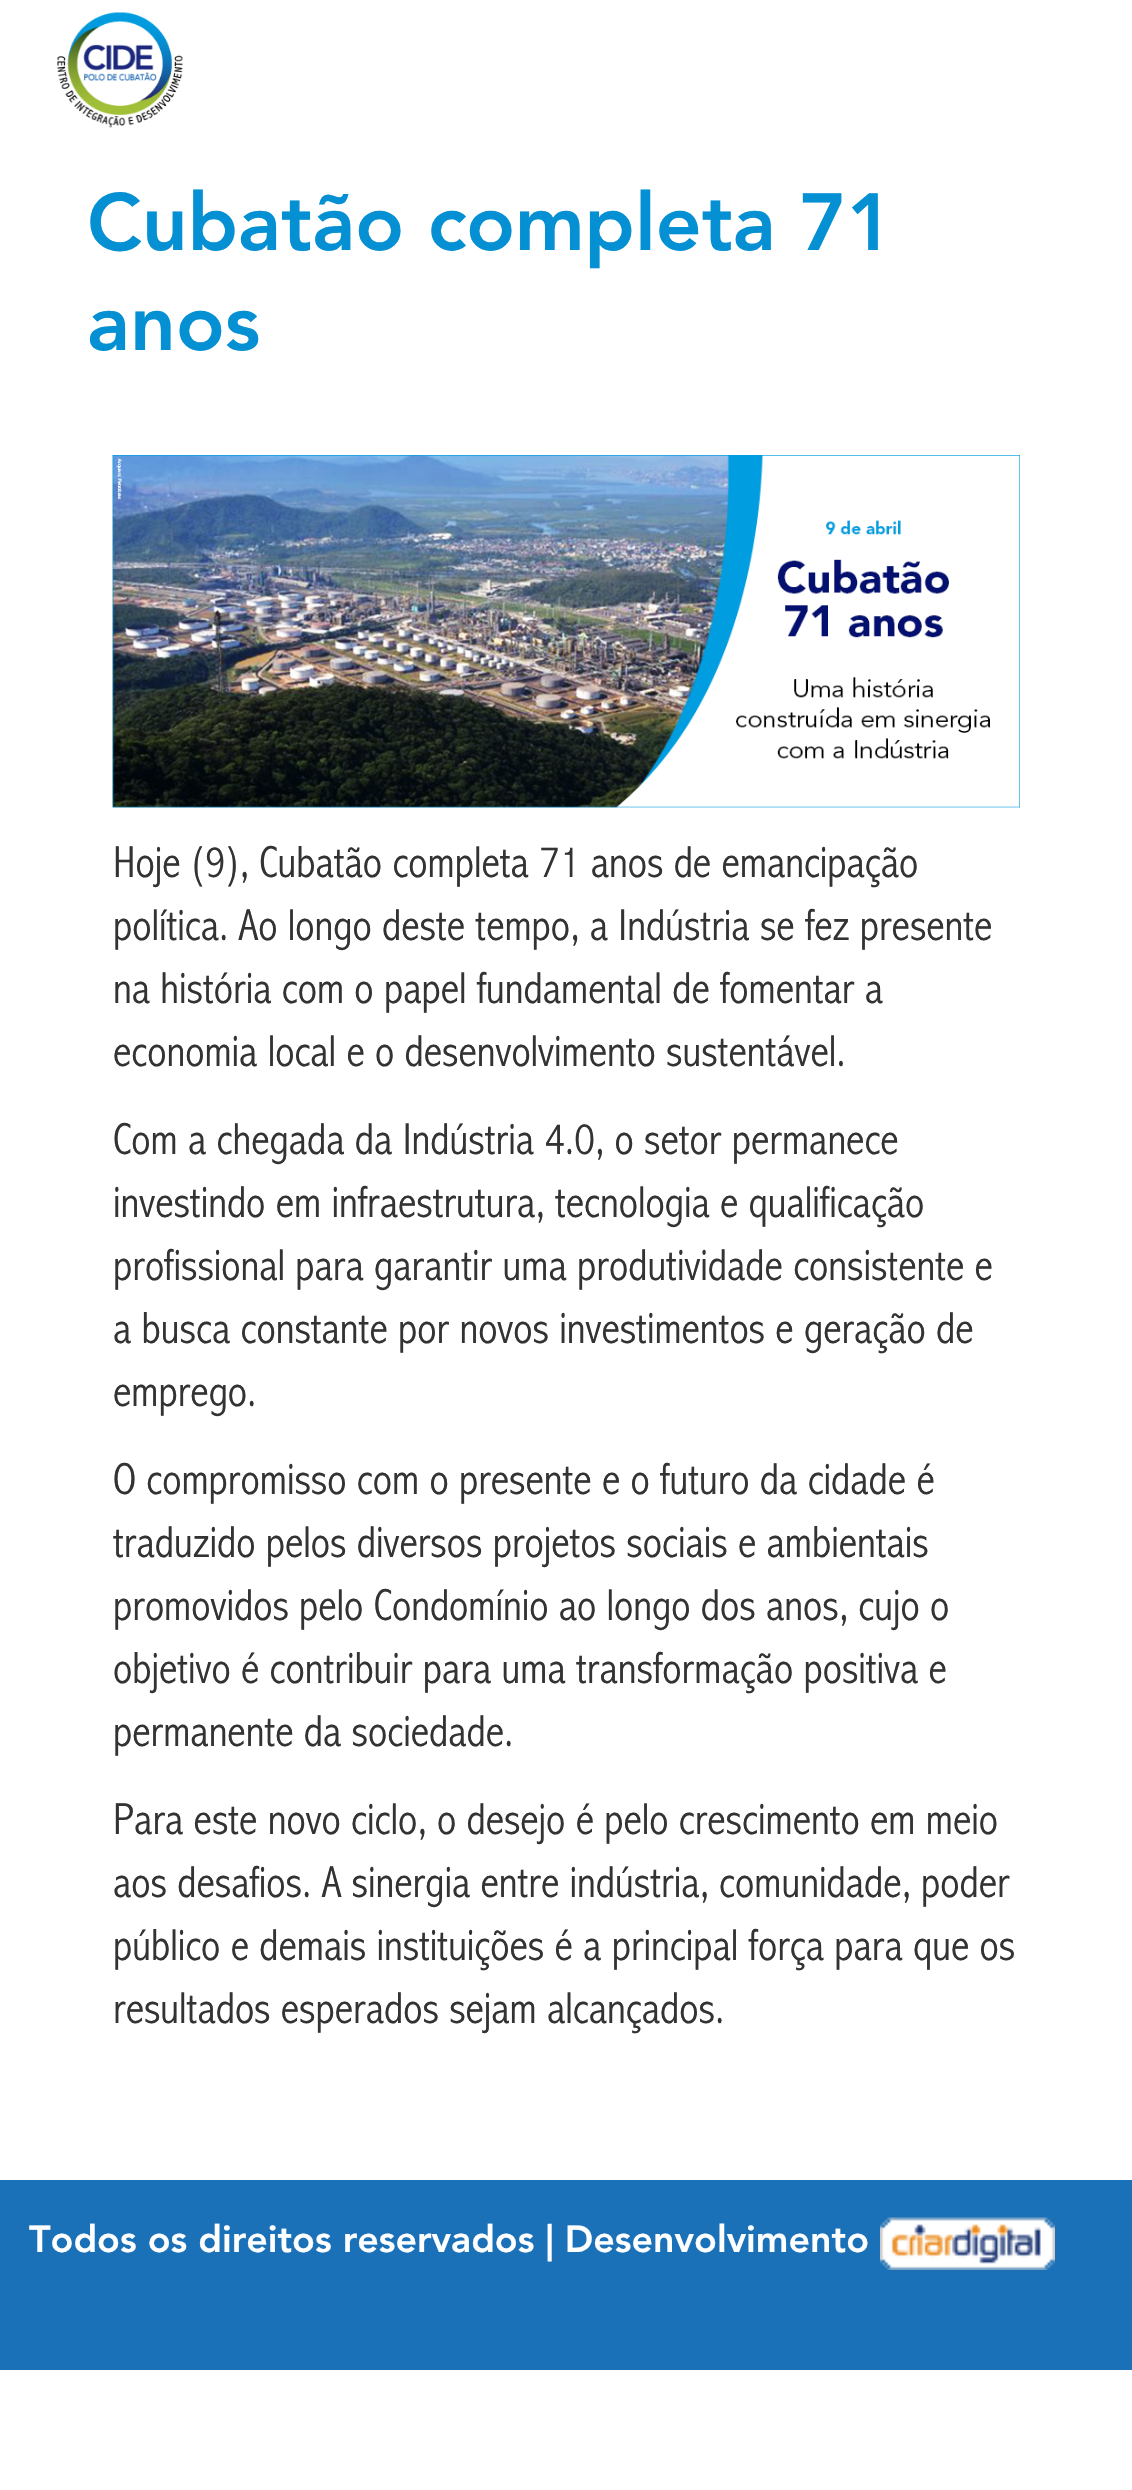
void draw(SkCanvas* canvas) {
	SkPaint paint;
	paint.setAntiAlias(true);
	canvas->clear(0xffffffff);
	canvas->drawImageRect(SkImages::DeferredFromEncodedData(SkData::MakeFromFileName("img1.png")), SkRect::MakeXYWH(57, 12, 126, 116), SkSamplingOptions());
	SkFont f1(fontMgr->matchFamilyStyle("Avenir", SkFontStyle(900, SkFontStyle::kNormal_Width, SkFontStyle::kUpright_Slant)), 80);
	f1.setSubpixel(true);
	paint.setColor(0xff0490d3);
	canvas->drawString("Cubatão completa 71", 87, 250, f1, paint);
	canvas->drawString("anos", 87, 350, f1, paint);
	canvas->drawImageRect(SkImages::DeferredFromEncodedData(SkData::MakeFromFileName("img2.png")), SkRect::MakeXYWH(112, 455, 908, 353), SkSamplingOptions());
	SkFont f2(fontMgr->matchFamilyStyle("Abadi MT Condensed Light", SkFontStyle(300, SkFontStyle::kNormal_Width, SkFontStyle::kUpright_Slant)), 45);
	f2.setSubpixel(true);
	paint.setColor(0xff333333);
	canvas->drawString("Hoje (9), Cubatão completa 71 anos de emancipação", 113, 877, f2, paint);
	canvas->drawString("política. Ao longo deste tempo, a Indústria se fez presente", 113, 940, f2, paint);
	canvas->drawString("na história com o papel fundamental de fomentar a", 113, 1003, f2, paint);
	canvas->drawString("economia local e o desenvolvimento sustentável.", 113, 1066, f2, paint);
	canvas->drawString("Com a chegada da Indústria 4.0, o setor permanece", 113, 1154, f2, paint);
	canvas->drawString("investindo em infraestrutura, tecnologia e qualificação", 113, 1217, f2, paint);
	canvas->drawString("profissional para garantir uma produtividade consistente e", 113, 1280, f2, paint);
	canvas->drawString("a busca constante por novos investimentos e geração de", 113, 1343, f2, paint);
	canvas->drawString("emprego.", 113, 1406, f2, paint);
	canvas->drawString("O compromisso com o presente e o futuro da cidade é", 113, 1494, f2, paint);
	canvas->drawString("traduzido pelos diversos projetos sociais e ambientais", 113, 1557, f2, paint);
	canvas->drawString("promovidos pelo Condomínio ao longo dos anos, cujo o", 113, 1620, f2, paint);
	canvas->drawString("objetivo é contribuir para uma transformação positiva e", 113, 1683, f2, paint);
	canvas->drawString("permanente da sociedade.", 113, 1746, f2, paint);
	canvas->drawString("Para este novo ciclo, o desejo é pelo crescimento em meio", 113, 1834, f2, paint);
	canvas->drawString("aos desafios. A sinergia entre indústria, comunidade, poder", 113, 1897, f2, paint);
	canvas->drawString("público e demais instituições é a principal força para que os", 113, 1960, f2, paint);
	canvas->drawString("resultados esperados sejam alcançados.", 113, 2023, f2, paint);
	paint.setColor(0xff1b71b8);
	canvas->drawRect(SkRect::MakeXYWH(0, 2180, 1132, 190), paint);
	SkFont f3(fontMgr->matchFamilyStyle("Avenir", SkFontStyle(900, SkFontStyle::kNormal_Width, SkFontStyle::kUpright_Slant)), 37.5);
	f3.setSubpixel(true);
	paint.setColor(0xffffffff);
	canvas->drawString("Todos os direitos reservados | Desenvolvimento", 29, 2252, f3, paint);
	canvas->drawImageRect(SkImages::DeferredFromEncodedData(SkData::MakeFromFileName("img3.png")), SkRect::MakeXYWH(880, 2217, 175, 53), SkSamplingOptions());
}
